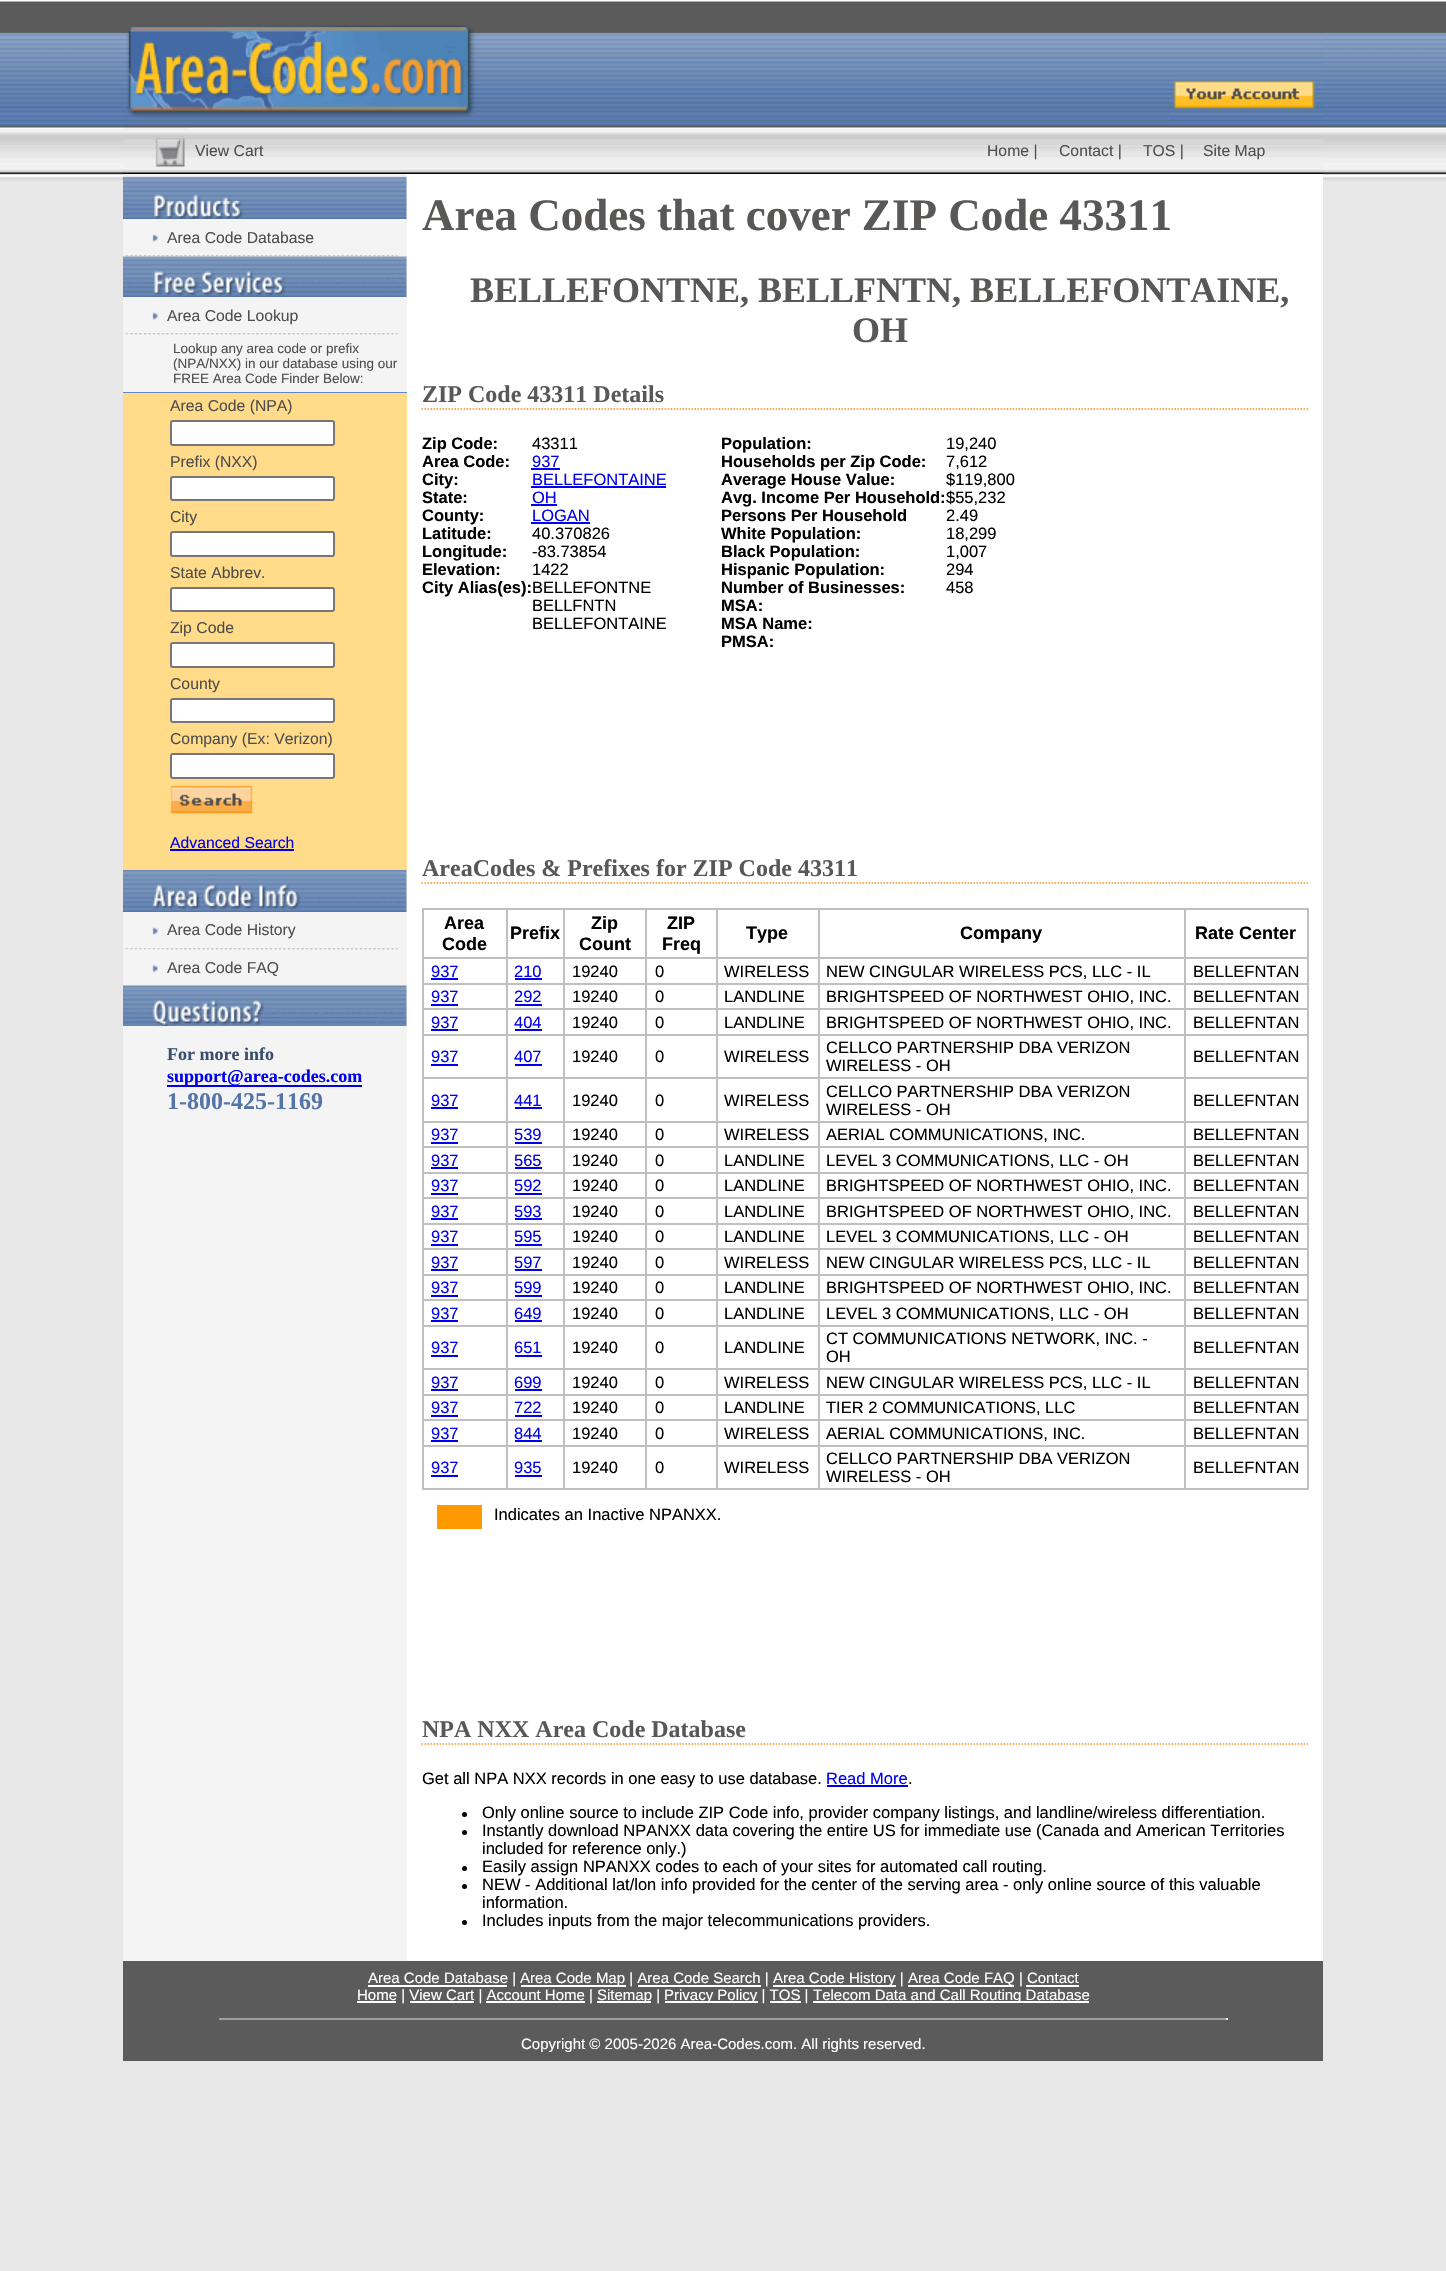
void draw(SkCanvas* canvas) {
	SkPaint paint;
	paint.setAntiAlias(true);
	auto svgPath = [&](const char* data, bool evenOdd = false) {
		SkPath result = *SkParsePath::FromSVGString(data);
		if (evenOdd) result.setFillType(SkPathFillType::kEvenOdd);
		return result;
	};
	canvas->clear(0xffe7e7e7);
	canvas->drawImageRect(SkImages::DeferredFromEncodedData(SkData::MakeFromFileName("img1.png")), SkRect::MakeXYWH(0, 0, 1446, 181), SkSamplingOptions());
	canvas->drawImageRect(SkImages::DeferredFromEncodedData(SkData::MakeFromFileName("img2.png")), SkRect::MakeXYWH(123, 25, 1047, 101), SkSamplingOptions());
	canvas->drawImageRect(SkImages::DeferredFromEncodedData(SkData::MakeFromFileName("img3.png")), SkRect::MakeXYWH(1170, 32, 153, 45), SkSamplingOptions());
	canvas->drawImageRect(SkImages::DeferredFromEncodedData(SkData::MakeFromFileName("img4.png")), SkRect::MakeXYWH(1170, 76, 153, 50), SkSamplingOptions());
	canvas->drawImageRect(SkImages::DeferredFromEncodedData(SkData::MakeFromFileName("img5.png")), SkRect::MakeXYWH(123, 126, 1200, 48), SkSamplingOptions());
	canvas->drawImageRect(SkImages::DeferredFromEncodedData(SkData::MakeFromFileName("img6.png")), SkRect::MakeXYWH(123, 127, 66, 40), SkSamplingOptions());
	SkFont f1(fontMgr->matchFamilyStyle("Liberation Sans", SkFontStyle::Normal()), 15.75);
	f1.setSubpixel(true);
	paint.setColor(0xff4e4e4e);
	canvas->drawString("View Cart", 195, 156, f1, paint);
	canvas->drawString("Home |", 987, 156, f1, paint);
	canvas->drawString("Contact |", 1059, 156, f1, paint);
	canvas->drawString("TOS |", 1143, 156, f1, paint);
	canvas->drawString("Site Map", 1203, 156, f1, paint);
	paint.setColor(0xfff4f4f4);
	canvas->drawRect(SkRect::MakeXYWH(123, 174, 284, 1787), paint);
	canvas->drawImageRect(SkImages::DeferredFromEncodedData(SkData::MakeFromFileName("img7.png")), SkRect::MakeXYWH(123, 176, 284, 43), SkSamplingOptions());
	canvas->drawImageRect(SkImages::DeferredFromEncodedData(SkData::MakeFromFileName("img8.png")), SkRect::MakeXYWH(152, 234, 7, 8), SkSamplingOptions());
	paint.setColor(0xff4e4e4e);
	canvas->drawString("Area Code Database", 167, 243, f1, paint);
	canvas->drawImageRect(SkImages::DeferredFromEncodedData(SkData::MakeFromFileName("img9.png")), SkRect::MakeXYWH(123, 255, 275, 2), SkSamplingOptions());
	canvas->drawImageRect(SkImages::DeferredFromEncodedData(SkData::MakeFromFileName("img10.png")), SkRect::MakeXYWH(123, 256, 284, 41), SkSamplingOptions());
	canvas->drawImageRect(SkImages::DeferredFromEncodedData(SkData::MakeFromFileName("img8.png")), SkRect::MakeXYWH(152, 312, 7, 8), SkSamplingOptions());
	canvas->drawString("Area Code Lookup", 167, 321, f1, paint);
	canvas->drawImageRect(SkImages::DeferredFromEncodedData(SkData::MakeFromFileName("img9.png")), SkRect::MakeXYWH(123, 333, 275, 2), SkSamplingOptions());
	SkFont f2(fontMgr->matchFamilyStyle("Liberation Sans", SkFontStyle::Normal()), 13.5);
	f2.setSubpixel(true);
	canvas->drawString("Lookup any area code or prefix", 173, 353, f2, paint);
	canvas->drawString("(NPA/NXX) in our database using our", 173, 368, f2, paint);
	canvas->drawString("FREE Area Code Finder Below:", 173, 383, f2, paint);
	paint.setColor(0xff5f87c2);
	canvas->drawRect(SkRect::MakeXYWH(123, 392, 284, 1), paint);
	paint.setColor(0xffffdb8a);
	canvas->drawRect(SkRect::MakeXYWH(123, 393, 284, 477), paint);
	paint.setColor(0xff4e4e4e);
	canvas->drawString("Area Code (NPA)", 170, 411, f1, paint);
	paint.setColor(0xffffffff);
	canvas->drawRoundRect(SkRect::MakeXYWH(171, 421, 163, 24), 2, 2, paint);
	paint.setStroke(true);
	paint.setStrokeWidth(2);
	paint.setColor(0xff767676);
	canvas->drawRoundRect(SkRect::MakeXYWH(171, 421, 163, 24), 2, 2, paint);
	paint.setStroke(false);
	paint.setColor(0xff4e4e4e);
	canvas->drawString("Prefix (NXX)", 170, 467, f1, paint);
	paint.setColor(0xffffffff);
	canvas->drawRoundRect(SkRect::MakeXYWH(171, 477, 163, 23), 2, 2, paint);
	paint.setStroke(true);
	paint.setColor(0xff767676);
	canvas->drawRoundRect(SkRect::MakeXYWH(171, 477, 163, 23), 2, 2, paint);
	paint.setStroke(false);
	paint.setColor(0xff4e4e4e);
	canvas->drawString("City", 170, 522, f1, paint);
	paint.setColor(0xffffffff);
	canvas->drawRoundRect(SkRect::MakeXYWH(171, 532, 163, 24), 2, 2, paint);
	paint.setStroke(true);
	paint.setColor(0xff767676);
	canvas->drawRoundRect(SkRect::MakeXYWH(171, 532, 163, 24), 2, 2, paint);
	paint.setStroke(false);
	paint.setColor(0xff4e4e4e);
	canvas->drawString("State Abbrev.", 170, 578, f1, paint);
	paint.setColor(0xffffffff);
	canvas->drawRoundRect(SkRect::MakeXYWH(171, 588, 163, 23), 2, 2, paint);
	paint.setStroke(true);
	paint.setColor(0xff767676);
	canvas->drawRoundRect(SkRect::MakeXYWH(171, 588, 163, 23), 2, 2, paint);
	paint.setStroke(false);
	paint.setColor(0xff4e4e4e);
	canvas->drawString("Zip Code", 170, 633, f1, paint);
	paint.setColor(0xffffffff);
	canvas->drawRoundRect(SkRect::MakeXYWH(171, 643, 163, 24), 2, 2, paint);
	paint.setStroke(true);
	paint.setColor(0xff767676);
	canvas->drawRoundRect(SkRect::MakeXYWH(171, 643, 163, 24), 2, 2, paint);
	paint.setStroke(false);
	paint.setColor(0xff4e4e4e);
	canvas->drawString("County", 170, 689, f1, paint);
	paint.setColor(0xffffffff);
	canvas->drawRoundRect(SkRect::MakeXYWH(171, 699, 163, 23), 2, 2, paint);
	paint.setStroke(true);
	paint.setColor(0xff767676);
	canvas->drawRoundRect(SkRect::MakeXYWH(171, 699, 163, 23), 2, 2, paint);
	paint.setStroke(false);
	paint.setColor(0xff4e4e4e);
	canvas->drawString("Company (Ex: Verizon)", 170, 744, f1, paint);
	paint.setColor(0xffffffff);
	canvas->drawRoundRect(SkRect::MakeXYWH(171, 754, 163, 24), 2, 2, paint);
	paint.setStroke(true);
	paint.setColor(0xff767676);
	canvas->drawRoundRect(SkRect::MakeXYWH(171, 754, 163, 24), 2, 2, paint);
	canvas->drawImageRect(SkImages::DeferredFromEncodedData(SkData::MakeFromFileName("img11.png")), SkRect::MakeXYWH(170, 785, 83, 29), SkSamplingOptions());
	paint.setStroke(false);
	paint.setColor(0xff0000ee);
	canvas->drawString("Advanced Search", 170, 848, f1, paint);
	canvas->drawRect(SkRect::MakeXYWH(170, 849, 124, 2), paint);
	canvas->drawImageRect(SkImages::DeferredFromEncodedData(SkData::MakeFromFileName("img12.png")), SkRect::MakeXYWH(123, 870, 284, 42), SkSamplingOptions());
	canvas->drawImageRect(SkImages::DeferredFromEncodedData(SkData::MakeFromFileName("img8.png")), SkRect::MakeXYWH(152, 927, 7, 8), SkSamplingOptions());
	paint.setColor(0xff4e4e4e);
	canvas->drawString("Area Code History", 167, 935, f1, paint);
	canvas->drawImageRect(SkImages::DeferredFromEncodedData(SkData::MakeFromFileName("img9.png")), SkRect::MakeXYWH(123, 948, 275, 2), SkSamplingOptions());
	canvas->drawImageRect(SkImages::DeferredFromEncodedData(SkData::MakeFromFileName("img13.png")), SkRect::MakeXYWH(126, 949, 38, 24), SkSamplingOptions());
	canvas->drawString("Area Code FAQ", 167, 973, f1, paint);
	canvas->drawImageRect(SkImages::DeferredFromEncodedData(SkData::MakeFromFileName("img14.png")), SkRect::MakeXYWH(123, 985, 284, 41), SkSamplingOptions());
	SkFont f3(fontMgr->matchFamilyStyle("Liberation Serif", SkFontStyle::Bold()), 18);
	f3.setSubpixel(true);
	paint.setColor(0xff374e6f);
	canvas->drawString("For more info", 167, 1060, f3, paint);
	paint.setColor(0xff0000ee);
	canvas->drawRect(SkRect::MakeXYWH(167, 1085, 195, 2), paint);
	canvas->drawString("support@area-codes.com", 167, 1082, f3, paint);
	SkFont f4(fontMgr->matchFamilyStyle("Liberation Serif", SkFontStyle::Bold()), 24);
	f4.setSubpixel(true);
	paint.setColor(0xff5475a7);
	canvas->drawString("1-800-425-1169", 167, 1109, f4, paint);
	paint.setColor(0xffffffff);
	canvas->drawRect(SkRect::MakeXYWH(407, 174, 916, 1787), paint);
	SkFont f5(fontMgr->matchFamilyStyle("Liberation Serif", SkFontStyle::Bold()), 45);
	f5.setSubpixel(true);
	paint.setColor(0xff595856);
	canvas->drawString("Area Codes that cover ZIP Code 43311", 422, 230, f5, paint);
	SkFont f6(fontMgr->matchFamilyStyle("Liberation Serif", SkFontStyle::Bold()), 36);
	f6.setSubpixel(true);
	canvas->drawString("BELLEFONTNE, BELLFNTN, BELLEFONTAINE,", 470, 302, f6, paint);
	canvas->drawString("OH", 852, 342, f6, paint);
	paint.setStroke(true);
	paint.setStrokeWidth(1.5);
	paint.setColor(0xfff7941d);
	paint.setPathEffect(SkDashPathEffect::Make({{1.5f, 1.5f}}, 0));
	canvas->drawPath(svgPath("M421.5 409H1308"), paint);
	paint.setPathEffect(nullptr);
	paint.setStroke(false);
	paint.setColor(0xff595856);
	canvas->drawString("ZIP Code 43311 Details", 422, 402, f4, paint);
	SkFont f7(fontMgr->matchFamilyStyle("Liberation Sans", SkFontStyle::Bold()), 16.5);
	f7.setSubpixel(true);
	paint.setColor(0xff000000);
	canvas->drawString("Zip Code:", 422, 449, f7, paint);
	SkFont f8(fontMgr->matchFamilyStyle("Liberation Sans", SkFontStyle::Normal()), 16.5);
	f8.setSubpixel(true);
	canvas->drawString("43311", 532, 449, f8, paint);
	canvas->drawString("Population:", 721, 449, f7, paint);
	canvas->drawString("19,240", 946, 449, f8, paint);
	canvas->drawString("Area Code:", 422, 467, f7, paint);
	paint.setColor(0xff0000ee);
	canvas->drawString("937", 532, 467, f8, paint);
	canvas->drawRect(SkRect::MakeXYWH(531, 468, 29, 2), paint);
	paint.setColor(0xff000000);
	canvas->drawString("Households per Zip Code:", 721, 467, f7, paint);
	canvas->drawString("7,612", 946, 467, f8, paint);
	canvas->drawString("City:", 422, 485, f7, paint);
	paint.setColor(0xff0000ee);
	canvas->drawString("BELLEFONTAINE", 532, 485, f8, paint);
	canvas->drawRect(SkRect::MakeXYWH(531, 486, 135, 2), paint);
	paint.setColor(0xff000000);
	canvas->drawString("Average House Value:", 721, 485, f7, paint);
	canvas->drawString("$119,800", 946, 485, f8, paint);
	canvas->drawString("State:", 422, 503, f7, paint);
	paint.setColor(0xff0000ee);
	canvas->drawString("OH", 532, 503, f8, paint);
	canvas->drawRect(SkRect::MakeXYWH(531, 504, 26, 2), paint);
	paint.setColor(0xff000000);
	canvas->drawString("Avg. Income Per Household:", 721, 503, f7, paint);
	canvas->drawString("$55,232", 946, 503, f8, paint);
	canvas->drawString("County:", 422, 521, f7, paint);
	paint.setColor(0xff0000ee);
	canvas->drawString("LOGAN", 532, 521, f8, paint);
	canvas->drawRect(SkRect::MakeXYWH(531, 522, 59, 2), paint);
	paint.setColor(0xff000000);
	canvas->drawString("Persons Per Household", 721, 521, f7, paint);
	canvas->drawString("2.49", 946, 521, f8, paint);
	canvas->drawString("Latitude:", 422, 539, f7, paint);
	canvas->drawString("40.370826", 532, 539, f8, paint);
	canvas->drawString("White Population:", 721, 539, f7, paint);
	canvas->drawString("18,299", 946, 539, f8, paint);
	canvas->drawString("Longitude:", 422, 557, f7, paint);
	canvas->drawString("-83.73854", 532, 557, f8, paint);
	canvas->drawString("Black Population:", 721, 557, f7, paint);
	canvas->drawString("1,007", 946, 557, f8, paint);
	canvas->drawString("Elevation:", 422, 575, f7, paint);
	canvas->drawString("1422", 532, 575, f8, paint);
	canvas->drawString("Hispanic Population:", 721, 575, f7, paint);
	canvas->drawString("294", 946, 575, f8, paint);
	canvas->drawString("City Alias(es):", 422, 593, f7, paint);
	canvas->drawString("BELLEFONTNE", 532, 593, f8, paint);
	canvas->drawString("BELLFNTN", 532, 611, f8, paint);
	canvas->drawString("BELLEFONTAINE", 532, 629, f8, paint);
	canvas->drawString("Number of Businesses:", 721, 593, f7, paint);
	canvas->drawString("458", 946, 593, f8, paint);
	canvas->drawString("MSA:", 721, 611, f7, paint);
	canvas->drawString("MSA Name:", 721, 629, f7, paint);
	canvas->drawString("PMSA:", 721, 647, f7, paint);
	paint.setStroke(true);
	paint.setColor(0xfff7941d);
	paint.setPathEffect(SkDashPathEffect::Make({{1.5f, 1.5f}}, 0));
	canvas->drawPath(svgPath("M421.5 883H1308"), paint);
	paint.setPathEffect(nullptr);
	paint.setStroke(false);
	paint.setColor(0xff595856);
	canvas->drawString("AreaCodes & Prefixes for ZIP Code 43311", 422, 876, f4, paint);
	paint.setColor(0xffc0c0c0);
	canvas->drawRect(SkRect::MakeXYWH(422, 908, 886, 2), paint);
	canvas->drawRect(SkRect::MakeXYWH(1307, 908, 2, 582), paint);
	canvas->drawRect(SkRect::MakeXYWH(422, 1488, 886, 2), paint);
	canvas->drawRect(SkRect::MakeXYWH(422, 908, 2, 582), paint);
	canvas->drawRect(SkRect::MakeXYWH(1184, 1445, 2, 45), paint);
	canvas->drawRect(SkRect::MakeXYWH(1184, 1445, 124, 2), paint);
	canvas->drawRect(SkRect::MakeXYWH(1184, 1419, 2, 27), paint);
	canvas->drawRect(SkRect::MakeXYWH(1184, 1419, 124, 2), paint);
	canvas->drawRect(SkRect::MakeXYWH(1184, 1394, 2, 27), paint);
	canvas->drawRect(SkRect::MakeXYWH(1184, 1394, 124, 2), paint);
	canvas->drawRect(SkRect::MakeXYWH(1184, 1368, 2, 27), paint);
	canvas->drawRect(SkRect::MakeXYWH(1184, 1368, 124, 2), paint);
	canvas->drawRect(SkRect::MakeXYWH(1184, 1325, 2, 45), paint);
	canvas->drawRect(SkRect::MakeXYWH(1184, 1325, 124, 2), paint);
	canvas->drawRect(SkRect::MakeXYWH(1184, 1299, 2, 27), paint);
	canvas->drawRect(SkRect::MakeXYWH(1184, 1299, 124, 2), paint);
	canvas->drawRect(SkRect::MakeXYWH(1184, 1274, 2, 27), paint);
	canvas->drawRect(SkRect::MakeXYWH(1184, 1274, 124, 2), paint);
	canvas->drawRect(SkRect::MakeXYWH(1184, 1248, 2, 27), paint);
	canvas->drawRect(SkRect::MakeXYWH(1184, 1248, 124, 2), paint);
	canvas->drawRect(SkRect::MakeXYWH(1184, 1223, 2, 27), paint);
	canvas->drawRect(SkRect::MakeXYWH(1184, 1223, 124, 2), paint);
	canvas->drawRect(SkRect::MakeXYWH(1184, 1197, 2, 27), paint);
	canvas->drawRect(SkRect::MakeXYWH(1184, 1197, 124, 2), paint);
	canvas->drawRect(SkRect::MakeXYWH(1184, 1172, 2, 27), paint);
	canvas->drawRect(SkRect::MakeXYWH(1184, 1172, 124, 2), paint);
	canvas->drawRect(SkRect::MakeXYWH(1184, 1146, 2, 27), paint);
	canvas->drawRect(SkRect::MakeXYWH(1184, 1146, 124, 2), paint);
	canvas->drawRect(SkRect::MakeXYWH(1184, 1121, 2, 27), paint);
	canvas->drawRect(SkRect::MakeXYWH(1184, 1121, 124, 2), paint);
	canvas->drawRect(SkRect::MakeXYWH(1184, 1077, 2, 45), paint);
	canvas->drawRect(SkRect::MakeXYWH(1184, 1077, 124, 2), paint);
	canvas->drawRect(SkRect::MakeXYWH(1184, 1034, 2, 45), paint);
	canvas->drawRect(SkRect::MakeXYWH(1184, 1034, 124, 2), paint);
	canvas->drawRect(SkRect::MakeXYWH(1184, 1008, 2, 27), paint);
	canvas->drawRect(SkRect::MakeXYWH(1184, 1008, 124, 2), paint);
	canvas->drawRect(SkRect::MakeXYWH(1184, 983, 2, 27), paint);
	canvas->drawRect(SkRect::MakeXYWH(1184, 983, 124, 2), paint);
	canvas->drawRect(SkRect::MakeXYWH(1184, 957, 2, 27), paint);
	canvas->drawRect(SkRect::MakeXYWH(1184, 957, 124, 2), paint);
	canvas->drawRect(SkRect::MakeXYWH(1184, 908, 2, 51), paint);
	canvas->drawRect(SkRect::MakeXYWH(818, 1445, 2, 45), paint);
	canvas->drawRect(SkRect::MakeXYWH(818, 1445, 367, 2), paint);
	canvas->drawRect(SkRect::MakeXYWH(818, 1419, 2, 27), paint);
	canvas->drawRect(SkRect::MakeXYWH(818, 1419, 367, 2), paint);
	canvas->drawRect(SkRect::MakeXYWH(818, 1394, 2, 27), paint);
	canvas->drawRect(SkRect::MakeXYWH(818, 1394, 367, 2), paint);
	canvas->drawRect(SkRect::MakeXYWH(818, 1368, 2, 27), paint);
	canvas->drawRect(SkRect::MakeXYWH(818, 1368, 367, 2), paint);
	canvas->drawRect(SkRect::MakeXYWH(818, 1325, 2, 45), paint);
	canvas->drawRect(SkRect::MakeXYWH(818, 1325, 367, 2), paint);
	canvas->drawRect(SkRect::MakeXYWH(818, 1299, 2, 27), paint);
	canvas->drawRect(SkRect::MakeXYWH(818, 1299, 367, 2), paint);
	canvas->drawRect(SkRect::MakeXYWH(818, 1274, 2, 27), paint);
	canvas->drawRect(SkRect::MakeXYWH(818, 1274, 367, 2), paint);
	canvas->drawRect(SkRect::MakeXYWH(818, 1248, 2, 27), paint);
	canvas->drawRect(SkRect::MakeXYWH(818, 1248, 367, 2), paint);
	canvas->drawRect(SkRect::MakeXYWH(818, 1223, 2, 27), paint);
	canvas->drawRect(SkRect::MakeXYWH(818, 1223, 367, 2), paint);
	canvas->drawRect(SkRect::MakeXYWH(818, 1197, 2, 27), paint);
	canvas->drawRect(SkRect::MakeXYWH(818, 1197, 367, 2), paint);
	canvas->drawRect(SkRect::MakeXYWH(818, 1172, 2, 27), paint);
	canvas->drawRect(SkRect::MakeXYWH(818, 1172, 367, 2), paint);
	canvas->drawRect(SkRect::MakeXYWH(818, 1146, 2, 27), paint);
	canvas->drawRect(SkRect::MakeXYWH(818, 1146, 367, 2), paint);
	canvas->drawRect(SkRect::MakeXYWH(818, 1121, 2, 27), paint);
	canvas->drawRect(SkRect::MakeXYWH(818, 1121, 367, 2), paint);
	canvas->drawRect(SkRect::MakeXYWH(818, 1077, 2, 45), paint);
	canvas->drawRect(SkRect::MakeXYWH(818, 1077, 367, 2), paint);
	canvas->drawRect(SkRect::MakeXYWH(818, 1034, 2, 45), paint);
	canvas->drawRect(SkRect::MakeXYWH(818, 1034, 367, 2), paint);
	canvas->drawRect(SkRect::MakeXYWH(818, 1008, 2, 27), paint);
	canvas->drawRect(SkRect::MakeXYWH(818, 1008, 367, 2), paint);
	canvas->drawRect(SkRect::MakeXYWH(818, 983, 2, 27), paint);
	canvas->drawRect(SkRect::MakeXYWH(818, 983, 367, 2), paint);
	canvas->drawRect(SkRect::MakeXYWH(818, 957, 2, 27), paint);
	canvas->drawRect(SkRect::MakeXYWH(818, 957, 367, 2), paint);
	canvas->drawRect(SkRect::MakeXYWH(818, 908, 2, 51), paint);
	canvas->drawRect(SkRect::MakeXYWH(716, 1445, 2, 45), paint);
	canvas->drawRect(SkRect::MakeXYWH(716, 1445, 103, 2), paint);
	canvas->drawRect(SkRect::MakeXYWH(716, 1419, 2, 27), paint);
	canvas->drawRect(SkRect::MakeXYWH(716, 1419, 103, 2), paint);
	canvas->drawRect(SkRect::MakeXYWH(716, 1394, 2, 27), paint);
	canvas->drawRect(SkRect::MakeXYWH(716, 1394, 103, 2), paint);
	canvas->drawRect(SkRect::MakeXYWH(716, 1368, 2, 27), paint);
	canvas->drawRect(SkRect::MakeXYWH(716, 1368, 103, 2), paint);
	canvas->drawRect(SkRect::MakeXYWH(716, 1325, 2, 45), paint);
	canvas->drawRect(SkRect::MakeXYWH(716, 1325, 103, 2), paint);
	canvas->drawRect(SkRect::MakeXYWH(716, 1299, 2, 27), paint);
	canvas->drawRect(SkRect::MakeXYWH(716, 1299, 103, 2), paint);
	canvas->drawRect(SkRect::MakeXYWH(716, 1274, 2, 27), paint);
	canvas->drawRect(SkRect::MakeXYWH(716, 1274, 103, 2), paint);
	canvas->drawRect(SkRect::MakeXYWH(716, 1248, 2, 27), paint);
	canvas->drawRect(SkRect::MakeXYWH(716, 1248, 103, 2), paint);
	canvas->drawRect(SkRect::MakeXYWH(716, 1223, 2, 27), paint);
	canvas->drawRect(SkRect::MakeXYWH(716, 1223, 103, 2), paint);
	canvas->drawRect(SkRect::MakeXYWH(716, 1197, 2, 27), paint);
	canvas->drawRect(SkRect::MakeXYWH(716, 1197, 103, 2), paint);
	canvas->drawRect(SkRect::MakeXYWH(716, 1172, 2, 27), paint);
	canvas->drawRect(SkRect::MakeXYWH(716, 1172, 103, 2), paint);
	canvas->drawRect(SkRect::MakeXYWH(716, 1146, 2, 27), paint);
	canvas->drawRect(SkRect::MakeXYWH(716, 1146, 103, 2), paint);
	canvas->drawRect(SkRect::MakeXYWH(716, 1121, 2, 27), paint);
	canvas->drawRect(SkRect::MakeXYWH(716, 1121, 103, 2), paint);
	canvas->drawRect(SkRect::MakeXYWH(716, 1077, 2, 45), paint);
	canvas->drawRect(SkRect::MakeXYWH(716, 1077, 103, 2), paint);
	canvas->drawRect(SkRect::MakeXYWH(716, 1034, 2, 45), paint);
	canvas->drawRect(SkRect::MakeXYWH(716, 1034, 103, 2), paint);
	canvas->drawRect(SkRect::MakeXYWH(716, 1008, 2, 27), paint);
	canvas->drawRect(SkRect::MakeXYWH(716, 1008, 103, 2), paint);
	canvas->drawRect(SkRect::MakeXYWH(716, 983, 2, 27), paint);
	canvas->drawRect(SkRect::MakeXYWH(716, 983, 103, 2), paint);
	canvas->drawRect(SkRect::MakeXYWH(716, 957, 2, 27), paint);
	canvas->drawRect(SkRect::MakeXYWH(716, 957, 103, 2), paint);
	canvas->drawRect(SkRect::MakeXYWH(716, 908, 2, 51), paint);
	canvas->drawRect(SkRect::MakeXYWH(645, 1445, 2, 45), paint);
	canvas->drawRect(SkRect::MakeXYWH(645, 1445, 72, 2), paint);
	canvas->drawRect(SkRect::MakeXYWH(645, 1419, 2, 27), paint);
	canvas->drawRect(SkRect::MakeXYWH(645, 1419, 72, 2), paint);
	canvas->drawRect(SkRect::MakeXYWH(645, 1394, 2, 27), paint);
	canvas->drawRect(SkRect::MakeXYWH(645, 1394, 72, 2), paint);
	canvas->drawRect(SkRect::MakeXYWH(645, 1368, 2, 27), paint);
	canvas->drawRect(SkRect::MakeXYWH(645, 1368, 72, 2), paint);
	canvas->drawRect(SkRect::MakeXYWH(645, 1325, 2, 45), paint);
	canvas->drawRect(SkRect::MakeXYWH(645, 1325, 72, 2), paint);
	canvas->drawRect(SkRect::MakeXYWH(645, 1299, 2, 27), paint);
	canvas->drawRect(SkRect::MakeXYWH(645, 1299, 72, 2), paint);
	canvas->drawRect(SkRect::MakeXYWH(645, 1274, 2, 27), paint);
	canvas->drawRect(SkRect::MakeXYWH(645, 1274, 72, 2), paint);
	canvas->drawRect(SkRect::MakeXYWH(645, 1248, 2, 27), paint);
	canvas->drawRect(SkRect::MakeXYWH(645, 1248, 72, 2), paint);
	canvas->drawRect(SkRect::MakeXYWH(645, 1223, 2, 27), paint);
	canvas->drawRect(SkRect::MakeXYWH(645, 1223, 72, 2), paint);
	canvas->drawRect(SkRect::MakeXYWH(645, 1197, 2, 27), paint);
	canvas->drawRect(SkRect::MakeXYWH(645, 1197, 72, 2), paint);
	canvas->drawRect(SkRect::MakeXYWH(645, 1172, 2, 27), paint);
	canvas->drawRect(SkRect::MakeXYWH(645, 1172, 72, 2), paint);
	canvas->drawRect(SkRect::MakeXYWH(645, 1146, 2, 27), paint);
	canvas->drawRect(SkRect::MakeXYWH(645, 1146, 72, 2), paint);
	canvas->drawRect(SkRect::MakeXYWH(645, 1121, 2, 27), paint);
	canvas->drawRect(SkRect::MakeXYWH(645, 1121, 72, 2), paint);
	canvas->drawRect(SkRect::MakeXYWH(645, 1077, 2, 45), paint);
	canvas->drawRect(SkRect::MakeXYWH(645, 1077, 72, 2), paint);
	canvas->drawRect(SkRect::MakeXYWH(645, 1034, 2, 45), paint);
	canvas->drawRect(SkRect::MakeXYWH(645, 1034, 72, 2), paint);
	canvas->drawRect(SkRect::MakeXYWH(645, 1008, 2, 27), paint);
	canvas->drawRect(SkRect::MakeXYWH(645, 1008, 72, 2), paint);
	canvas->drawRect(SkRect::MakeXYWH(645, 983, 2, 27), paint);
	canvas->drawRect(SkRect::MakeXYWH(645, 983, 72, 2), paint);
	canvas->drawRect(SkRect::MakeXYWH(645, 957, 2, 27), paint);
	canvas->drawRect(SkRect::MakeXYWH(645, 957, 72, 2), paint);
	canvas->drawRect(SkRect::MakeXYWH(645, 908, 2, 51), paint);
	canvas->drawRect(SkRect::MakeXYWH(563, 1445, 2, 45), paint);
	canvas->drawRect(SkRect::MakeXYWH(563, 1445, 84, 2), paint);
	canvas->drawRect(SkRect::MakeXYWH(563, 1419, 2, 27), paint);
	canvas->drawRect(SkRect::MakeXYWH(563, 1419, 84, 2), paint);
	canvas->drawRect(SkRect::MakeXYWH(563, 1394, 2, 27), paint);
	canvas->drawRect(SkRect::MakeXYWH(563, 1394, 84, 2), paint);
	canvas->drawRect(SkRect::MakeXYWH(563, 1368, 2, 27), paint);
	canvas->drawRect(SkRect::MakeXYWH(563, 1368, 84, 2), paint);
	canvas->drawRect(SkRect::MakeXYWH(563, 1325, 2, 45), paint);
	canvas->drawRect(SkRect::MakeXYWH(563, 1325, 84, 2), paint);
	canvas->drawRect(SkRect::MakeXYWH(563, 1299, 2, 27), paint);
	canvas->drawRect(SkRect::MakeXYWH(563, 1299, 84, 2), paint);
	canvas->drawRect(SkRect::MakeXYWH(563, 1274, 2, 27), paint);
	canvas->drawRect(SkRect::MakeXYWH(563, 1274, 84, 2), paint);
	canvas->drawRect(SkRect::MakeXYWH(563, 1248, 2, 27), paint);
	canvas->drawRect(SkRect::MakeXYWH(563, 1248, 84, 2), paint);
	canvas->drawRect(SkRect::MakeXYWH(563, 1223, 2, 27), paint);
	canvas->drawRect(SkRect::MakeXYWH(563, 1223, 84, 2), paint);
	canvas->drawRect(SkRect::MakeXYWH(563, 1197, 2, 27), paint);
	canvas->drawRect(SkRect::MakeXYWH(563, 1197, 84, 2), paint);
	canvas->drawRect(SkRect::MakeXYWH(563, 1172, 2, 27), paint);
	canvas->drawRect(SkRect::MakeXYWH(563, 1172, 84, 2), paint);
	canvas->drawRect(SkRect::MakeXYWH(563, 1146, 2, 27), paint);
	canvas->drawRect(SkRect::MakeXYWH(563, 1146, 84, 2), paint);
	canvas->drawRect(SkRect::MakeXYWH(563, 1121, 2, 27), paint);
	canvas->drawRect(SkRect::MakeXYWH(563, 1121, 84, 2), paint);
	canvas->drawRect(SkRect::MakeXYWH(563, 1077, 2, 45), paint);
	canvas->drawRect(SkRect::MakeXYWH(563, 1077, 84, 2), paint);
	canvas->drawRect(SkRect::MakeXYWH(563, 1034, 2, 45), paint);
	canvas->drawRect(SkRect::MakeXYWH(563, 1034, 84, 2), paint);
	canvas->drawRect(SkRect::MakeXYWH(563, 1008, 2, 27), paint);
	canvas->drawRect(SkRect::MakeXYWH(563, 1008, 84, 2), paint);
	canvas->drawRect(SkRect::MakeXYWH(563, 983, 2, 27), paint);
	canvas->drawRect(SkRect::MakeXYWH(563, 983, 84, 2), paint);
	canvas->drawRect(SkRect::MakeXYWH(563, 957, 2, 27), paint);
	canvas->drawRect(SkRect::MakeXYWH(563, 957, 84, 2), paint);
	canvas->drawRect(SkRect::MakeXYWH(563, 908, 2, 51), paint);
	canvas->drawRect(SkRect::MakeXYWH(506, 1445, 2, 45), paint);
	canvas->drawRect(SkRect::MakeXYWH(506, 1445, 58, 2), paint);
	canvas->drawRect(SkRect::MakeXYWH(506, 1419, 2, 27), paint);
	canvas->drawRect(SkRect::MakeXYWH(506, 1419, 58, 2), paint);
	canvas->drawRect(SkRect::MakeXYWH(506, 1394, 2, 27), paint);
	canvas->drawRect(SkRect::MakeXYWH(506, 1394, 58, 2), paint);
	canvas->drawRect(SkRect::MakeXYWH(506, 1368, 2, 27), paint);
	canvas->drawRect(SkRect::MakeXYWH(506, 1368, 58, 2), paint);
	canvas->drawRect(SkRect::MakeXYWH(506, 1325, 2, 45), paint);
	canvas->drawRect(SkRect::MakeXYWH(506, 1325, 58, 2), paint);
	canvas->drawRect(SkRect::MakeXYWH(506, 1299, 2, 27), paint);
	canvas->drawRect(SkRect::MakeXYWH(506, 1299, 58, 2), paint);
	canvas->drawRect(SkRect::MakeXYWH(506, 1274, 2, 27), paint);
	canvas->drawRect(SkRect::MakeXYWH(506, 1274, 58, 2), paint);
	canvas->drawRect(SkRect::MakeXYWH(506, 1248, 2, 27), paint);
	canvas->drawRect(SkRect::MakeXYWH(506, 1248, 58, 2), paint);
	canvas->drawRect(SkRect::MakeXYWH(506, 1223, 2, 27), paint);
	canvas->drawRect(SkRect::MakeXYWH(506, 1223, 58, 2), paint);
	canvas->drawRect(SkRect::MakeXYWH(506, 1197, 2, 27), paint);
	canvas->drawRect(SkRect::MakeXYWH(506, 1197, 58, 2), paint);
	canvas->drawRect(SkRect::MakeXYWH(506, 1172, 2, 27), paint);
	canvas->drawRect(SkRect::MakeXYWH(506, 1172, 58, 2), paint);
	canvas->drawRect(SkRect::MakeXYWH(506, 1146, 2, 27), paint);
	canvas->drawRect(SkRect::MakeXYWH(506, 1146, 58, 2), paint);
	canvas->drawRect(SkRect::MakeXYWH(506, 1121, 2, 27), paint);
	canvas->drawRect(SkRect::MakeXYWH(506, 1121, 58, 2), paint);
	canvas->drawRect(SkRect::MakeXYWH(506, 1077, 2, 45), paint);
	canvas->drawRect(SkRect::MakeXYWH(506, 1077, 58, 2), paint);
	canvas->drawRect(SkRect::MakeXYWH(506, 1034, 2, 45), paint);
	canvas->drawRect(SkRect::MakeXYWH(506, 1034, 58, 2), paint);
	canvas->drawRect(SkRect::MakeXYWH(506, 1008, 2, 27), paint);
	canvas->drawRect(SkRect::MakeXYWH(506, 1008, 58, 2), paint);
	canvas->drawRect(SkRect::MakeXYWH(506, 983, 2, 27), paint);
	canvas->drawRect(SkRect::MakeXYWH(506, 983, 58, 2), paint);
	canvas->drawRect(SkRect::MakeXYWH(506, 957, 2, 27), paint);
	canvas->drawRect(SkRect::MakeXYWH(506, 957, 58, 2), paint);
	canvas->drawRect(SkRect::MakeXYWH(506, 908, 2, 51), paint);
	canvas->drawRect(SkRect::MakeXYWH(422, 957, 85, 2), paint);
	SkFont f9(fontMgr->matchFamilyStyle("Liberation Sans", SkFontStyle::Bold()), 18);
	f9.setSubpixel(true);
	paint.setColor(0xff000000);
	canvas->drawString("Area", 444, 929, f9, paint);
	canvas->drawString("Code", 442, 950, f9, paint);
	canvas->drawString("Prefix", 510, 939, f9, paint);
	canvas->drawString("Zip", 591, 929, f9, paint);
	canvas->drawString("Count", 579, 950, f9, paint);
	canvas->drawString("ZIP", 667, 929, f9, paint);
	canvas->drawString("Freq", 662, 950, f9, paint);
	canvas->drawString("Type", 746, 939, f9, paint);
	canvas->drawString("Company", 960, 939, f9, paint);
	canvas->drawString("Rate Center", 1195, 939, f9, paint);
	paint.setColor(0xffc0c0c0);
	canvas->drawRect(SkRect::MakeXYWH(422, 983, 85, 2), paint);
	paint.setColor(0xff0000ee);
	canvas->drawString("937", 431, 977, f8, paint);
	canvas->drawRect(SkRect::MakeXYWH(431, 978, 27, 2), paint);
	canvas->drawString("210", 514, 977, f8, paint);
	canvas->drawRect(SkRect::MakeXYWH(515, 978, 27, 2), paint);
	paint.setColor(0xff000000);
	canvas->drawString("19240", 572, 977, f8, paint);
	canvas->drawString("0", 655, 977, f8, paint);
	canvas->drawString("WIRELESS", 724, 977, f8, paint);
	canvas->drawString("NEW CINGULAR WIRELESS PCS, LLC - IL", 826, 977, f8, paint);
	canvas->drawString("BELLEFNTAN", 1193, 977, f8, paint);
	paint.setColor(0xffc0c0c0);
	canvas->drawRect(SkRect::MakeXYWH(422, 1008, 85, 2), paint);
	paint.setColor(0xff0000ee);
	canvas->drawString("937", 431, 1002, f8, paint);
	canvas->drawRect(SkRect::MakeXYWH(431, 1004, 27, 2), paint);
	canvas->drawString("292", 514, 1002, f8, paint);
	canvas->drawRect(SkRect::MakeXYWH(515, 1004, 27, 2), paint);
	paint.setColor(0xff000000);
	canvas->drawString("19240", 572, 1002, f8, paint);
	canvas->drawString("0", 655, 1002, f8, paint);
	canvas->drawString("LANDLINE", 724, 1002, f8, paint);
	canvas->drawString("BRIGHTSPEED OF NORTHWEST OHIO, INC.", 826, 1002, f8, paint);
	canvas->drawString("BELLEFNTAN", 1193, 1002, f8, paint);
	paint.setColor(0xffc0c0c0);
	canvas->drawRect(SkRect::MakeXYWH(422, 1034, 85, 2), paint);
	paint.setColor(0xff0000ee);
	canvas->drawString("937", 431, 1028, f8, paint);
	canvas->drawRect(SkRect::MakeXYWH(431, 1029, 27, 2), paint);
	canvas->drawString("404", 514, 1028, f8, paint);
	canvas->drawRect(SkRect::MakeXYWH(515, 1029, 27, 2), paint);
	paint.setColor(0xff000000);
	canvas->drawString("19240", 572, 1028, f8, paint);
	canvas->drawString("0", 655, 1028, f8, paint);
	canvas->drawString("LANDLINE", 724, 1028, f8, paint);
	canvas->drawString("BRIGHTSPEED OF NORTHWEST OHIO, INC.", 826, 1028, f8, paint);
	canvas->drawString("BELLEFNTAN", 1193, 1028, f8, paint);
	paint.setColor(0xffc0c0c0);
	canvas->drawRect(SkRect::MakeXYWH(422, 1077, 85, 2), paint);
	paint.setColor(0xff0000ee);
	canvas->drawString("937", 431, 1062, f8, paint);
	canvas->drawRect(SkRect::MakeXYWH(431, 1064, 27, 2), paint);
	canvas->drawString("407", 514, 1062, f8, paint);
	canvas->drawRect(SkRect::MakeXYWH(515, 1064, 27, 2), paint);
	paint.setColor(0xff000000);
	canvas->drawString("19240", 572, 1062, f8, paint);
	canvas->drawString("0", 655, 1062, f8, paint);
	canvas->drawString("WIRELESS", 724, 1062, f8, paint);
	canvas->drawString("CELLCO PARTNERSHIP DBA VERIZON", 826, 1053, f8, paint);
	canvas->drawString("WIRELESS - OH", 826, 1071, f8, paint);
	canvas->drawString("BELLEFNTAN", 1193, 1062, f8, paint);
	paint.setColor(0xffc0c0c0);
	canvas->drawRect(SkRect::MakeXYWH(422, 1121, 85, 2), paint);
	paint.setColor(0xff0000ee);
	canvas->drawString("937", 431, 1106, f8, paint);
	canvas->drawRect(SkRect::MakeXYWH(431, 1107, 27, 2), paint);
	canvas->drawString("441", 514, 1106, f8, paint);
	canvas->drawRect(SkRect::MakeXYWH(515, 1107, 27, 2), paint);
	paint.setColor(0xff000000);
	canvas->drawString("19240", 572, 1106, f8, paint);
	canvas->drawString("0", 655, 1106, f8, paint);
	canvas->drawString("WIRELESS", 724, 1106, f8, paint);
	canvas->drawString("CELLCO PARTNERSHIP DBA VERIZON", 826, 1097, f8, paint);
	canvas->drawString("WIRELESS - OH", 826, 1115, f8, paint);
	canvas->drawString("BELLEFNTAN", 1193, 1106, f8, paint);
	paint.setColor(0xffc0c0c0);
	canvas->drawRect(SkRect::MakeXYWH(422, 1146, 85, 2), paint);
	paint.setColor(0xff0000ee);
	canvas->drawString("937", 431, 1140, f8, paint);
	canvas->drawRect(SkRect::MakeXYWH(431, 1142, 27, 2), paint);
	canvas->drawString("539", 514, 1140, f8, paint);
	canvas->drawRect(SkRect::MakeXYWH(515, 1142, 27, 2), paint);
	paint.setColor(0xff000000);
	canvas->drawString("19240", 572, 1140, f8, paint);
	canvas->drawString("0", 655, 1140, f8, paint);
	canvas->drawString("WIRELESS", 724, 1140, f8, paint);
	canvas->drawString("AERIAL COMMUNICATIONS, INC.", 826, 1140, f8, paint);
	canvas->drawString("BELLEFNTAN", 1193, 1140, f8, paint);
	paint.setColor(0xffc0c0c0);
	canvas->drawRect(SkRect::MakeXYWH(422, 1172, 85, 2), paint);
	paint.setColor(0xff0000ee);
	canvas->drawString("937", 431, 1166, f8, paint);
	canvas->drawRect(SkRect::MakeXYWH(431, 1167, 27, 2), paint);
	canvas->drawString("565", 514, 1166, f8, paint);
	canvas->drawRect(SkRect::MakeXYWH(515, 1167, 27, 2), paint);
	paint.setColor(0xff000000);
	canvas->drawString("19240", 572, 1166, f8, paint);
	canvas->drawString("0", 655, 1166, f8, paint);
	canvas->drawString("LANDLINE", 724, 1166, f8, paint);
	canvas->drawString("LEVEL 3 COMMUNICATIONS, LLC - OH", 826, 1166, f8, paint);
	canvas->drawString("BELLEFNTAN", 1193, 1166, f8, paint);
	paint.setColor(0xffc0c0c0);
	canvas->drawRect(SkRect::MakeXYWH(422, 1197, 85, 2), paint);
	paint.setColor(0xff0000ee);
	canvas->drawString("937", 431, 1191, f8, paint);
	canvas->drawRect(SkRect::MakeXYWH(431, 1193, 27, 2), paint);
	canvas->drawString("592", 514, 1191, f8, paint);
	canvas->drawRect(SkRect::MakeXYWH(515, 1193, 27, 2), paint);
	paint.setColor(0xff000000);
	canvas->drawString("19240", 572, 1191, f8, paint);
	canvas->drawString("0", 655, 1191, f8, paint);
	canvas->drawString("LANDLINE", 724, 1191, f8, paint);
	canvas->drawString("BRIGHTSPEED OF NORTHWEST OHIO, INC.", 826, 1191, f8, paint);
	canvas->drawString("BELLEFNTAN", 1193, 1191, f8, paint);
	paint.setColor(0xffc0c0c0);
	canvas->drawRect(SkRect::MakeXYWH(422, 1223, 85, 2), paint);
	paint.setColor(0xff0000ee);
	canvas->drawString("937", 431, 1217, f8, paint);
	canvas->drawRect(SkRect::MakeXYWH(431, 1218, 27, 2), paint);
	canvas->drawString("593", 514, 1217, f8, paint);
	canvas->drawRect(SkRect::MakeXYWH(515, 1218, 27, 2), paint);
	paint.setColor(0xff000000);
	canvas->drawString("19240", 572, 1217, f8, paint);
	canvas->drawString("0", 655, 1217, f8, paint);
	canvas->drawString("LANDLINE", 724, 1217, f8, paint);
	canvas->drawString("BRIGHTSPEED OF NORTHWEST OHIO, INC.", 826, 1217, f8, paint);
	canvas->drawString("BELLEFNTAN", 1193, 1217, f8, paint);
	paint.setColor(0xffc0c0c0);
	canvas->drawRect(SkRect::MakeXYWH(422, 1248, 85, 2), paint);
	paint.setColor(0xff0000ee);
	canvas->drawString("937", 431, 1242, f8, paint);
	canvas->drawRect(SkRect::MakeXYWH(431, 1244, 27, 2), paint);
	canvas->drawString("595", 514, 1242, f8, paint);
	canvas->drawRect(SkRect::MakeXYWH(515, 1244, 27, 2), paint);
	paint.setColor(0xff000000);
	canvas->drawString("19240", 572, 1242, f8, paint);
	canvas->drawString("0", 655, 1242, f8, paint);
	canvas->drawString("LANDLINE", 724, 1242, f8, paint);
	canvas->drawString("LEVEL 3 COMMUNICATIONS, LLC - OH", 826, 1242, f8, paint);
	canvas->drawString("BELLEFNTAN", 1193, 1242, f8, paint);
	paint.setColor(0xffc0c0c0);
	canvas->drawRect(SkRect::MakeXYWH(422, 1274, 85, 2), paint);
	paint.setColor(0xff0000ee);
	canvas->drawString("937", 431, 1268, f8, paint);
	canvas->drawRect(SkRect::MakeXYWH(431, 1269, 27, 2), paint);
	canvas->drawString("597", 514, 1268, f8, paint);
	canvas->drawRect(SkRect::MakeXYWH(515, 1269, 27, 2), paint);
	paint.setColor(0xff000000);
	canvas->drawString("19240", 572, 1268, f8, paint);
	canvas->drawString("0", 655, 1268, f8, paint);
	canvas->drawString("WIRELESS", 724, 1268, f8, paint);
	canvas->drawString("NEW CINGULAR WIRELESS PCS, LLC - IL", 826, 1268, f8, paint);
	canvas->drawString("BELLEFNTAN", 1193, 1268, f8, paint);
	paint.setColor(0xffc0c0c0);
	canvas->drawRect(SkRect::MakeXYWH(422, 1299, 85, 2), paint);
	paint.setColor(0xff0000ee);
	canvas->drawString("937", 431, 1293, f8, paint);
	canvas->drawRect(SkRect::MakeXYWH(431, 1295, 27, 2), paint);
	canvas->drawString("599", 514, 1293, f8, paint);
	canvas->drawRect(SkRect::MakeXYWH(515, 1295, 27, 2), paint);
	paint.setColor(0xff000000);
	canvas->drawString("19240", 572, 1293, f8, paint);
	canvas->drawString("0", 655, 1293, f8, paint);
	canvas->drawString("LANDLINE", 724, 1293, f8, paint);
	canvas->drawString("BRIGHTSPEED OF NORTHWEST OHIO, INC.", 826, 1293, f8, paint);
	canvas->drawString("BELLEFNTAN", 1193, 1293, f8, paint);
	paint.setColor(0xffc0c0c0);
	canvas->drawRect(SkRect::MakeXYWH(422, 1325, 85, 2), paint);
	paint.setColor(0xff0000ee);
	canvas->drawString("937", 431, 1319, f8, paint);
	canvas->drawRect(SkRect::MakeXYWH(431, 1320, 27, 2), paint);
	canvas->drawString("649", 514, 1319, f8, paint);
	canvas->drawRect(SkRect::MakeXYWH(515, 1320, 27, 2), paint);
	paint.setColor(0xff000000);
	canvas->drawString("19240", 572, 1319, f8, paint);
	canvas->drawString("0", 655, 1319, f8, paint);
	canvas->drawString("LANDLINE", 724, 1319, f8, paint);
	canvas->drawString("LEVEL 3 COMMUNICATIONS, LLC - OH", 826, 1319, f8, paint);
	canvas->drawString("BELLEFNTAN", 1193, 1319, f8, paint);
	paint.setColor(0xffc0c0c0);
	canvas->drawRect(SkRect::MakeXYWH(422, 1368, 85, 2), paint);
	paint.setColor(0xff0000ee);
	canvas->drawString("937", 431, 1353, f8, paint);
	canvas->drawRect(SkRect::MakeXYWH(431, 1355, 27, 2), paint);
	canvas->drawString("651", 514, 1353, f8, paint);
	canvas->drawRect(SkRect::MakeXYWH(515, 1355, 27, 2), paint);
	paint.setColor(0xff000000);
	canvas->drawString("19240", 572, 1353, f8, paint);
	canvas->drawString("0", 655, 1353, f8, paint);
	canvas->drawString("LANDLINE", 724, 1353, f8, paint);
	canvas->drawString("CT COMMUNICATIONS NETWORK, INC. -", 826, 1344, f8, paint);
	canvas->drawString("OH", 826, 1362, f8, paint);
	canvas->drawString("BELLEFNTAN", 1193, 1353, f8, paint);
	paint.setColor(0xffc0c0c0);
	canvas->drawRect(SkRect::MakeXYWH(422, 1394, 85, 2), paint);
	paint.setColor(0xff0000ee);
	canvas->drawString("937", 431, 1388, f8, paint);
	canvas->drawRect(SkRect::MakeXYWH(431, 1389, 27, 2), paint);
	canvas->drawString("699", 514, 1388, f8, paint);
	canvas->drawRect(SkRect::MakeXYWH(515, 1389, 27, 2), paint);
	paint.setColor(0xff000000);
	canvas->drawString("19240", 572, 1388, f8, paint);
	canvas->drawString("0", 655, 1388, f8, paint);
	canvas->drawString("WIRELESS", 724, 1388, f8, paint);
	canvas->drawString("NEW CINGULAR WIRELESS PCS, LLC - IL", 826, 1388, f8, paint);
	canvas->drawString("BELLEFNTAN", 1193, 1388, f8, paint);
	paint.setColor(0xffc0c0c0);
	canvas->drawRect(SkRect::MakeXYWH(422, 1419, 85, 2), paint);
	paint.setColor(0xff0000ee);
	canvas->drawString("937", 431, 1413, f8, paint);
	canvas->drawRect(SkRect::MakeXYWH(431, 1415, 27, 2), paint);
	canvas->drawString("722", 514, 1413, f8, paint);
	canvas->drawRect(SkRect::MakeXYWH(515, 1415, 27, 2), paint);
	paint.setColor(0xff000000);
	canvas->drawString("19240", 572, 1413, f8, paint);
	canvas->drawString("0", 655, 1413, f8, paint);
	canvas->drawString("LANDLINE", 724, 1413, f8, paint);
	canvas->drawString("TIER 2 COMMUNICATIONS, LLC", 826, 1413, f8, paint);
	canvas->drawString("BELLEFNTAN", 1193, 1413, f8, paint);
	paint.setColor(0xffc0c0c0);
	canvas->drawRect(SkRect::MakeXYWH(422, 1445, 85, 2), paint);
	paint.setColor(0xff0000ee);
	canvas->drawString("937", 431, 1439, f8, paint);
	canvas->drawRect(SkRect::MakeXYWH(431, 1440, 27, 2), paint);
	canvas->drawString("844", 514, 1439, f8, paint);
	canvas->drawRect(SkRect::MakeXYWH(515, 1440, 27, 2), paint);
	paint.setColor(0xff000000);
	canvas->drawString("19240", 572, 1439, f8, paint);
	canvas->drawString("0", 655, 1439, f8, paint);
	canvas->drawString("WIRELESS", 724, 1439, f8, paint);
	canvas->drawString("AERIAL COMMUNICATIONS, INC.", 826, 1439, f8, paint);
	canvas->drawString("BELLEFNTAN", 1193, 1439, f8, paint);
	paint.setColor(0xff0000ee);
	canvas->drawString("937", 431, 1473, f8, paint);
	canvas->drawRect(SkRect::MakeXYWH(431, 1475, 27, 2), paint);
	canvas->drawString("935", 514, 1473, f8, paint);
	canvas->drawRect(SkRect::MakeXYWH(515, 1475, 27, 2), paint);
	paint.setColor(0xff000000);
	canvas->drawString("19240", 572, 1473, f8, paint);
	canvas->drawString("0", 655, 1473, f8, paint);
	canvas->drawString("WIRELESS", 724, 1473, f8, paint);
	canvas->drawString("CELLCO PARTNERSHIP DBA VERIZON", 826, 1464, f8, paint);
	canvas->drawString("WIRELESS - OH", 826, 1482, f8, paint);
	canvas->drawString("BELLEFNTAN", 1193, 1473, f8, paint);
	paint.setColor(0xffff9900);
	canvas->drawRect(SkRect::MakeXYWH(437, 1505, 45, 24), paint);
	paint.setColor(0xff000000);
	canvas->drawString("Indicates an Inactive NPANXX.", 494, 1520, f8, paint);
	paint.setStroke(true);
	paint.setColor(0xfff7941d);
	paint.setPathEffect(SkDashPathEffect::Make({{1.5f, 1.5f}}, 0));
	canvas->drawPath(svgPath("M421.5 1744H1308"), paint);
	paint.setPathEffect(nullptr);
	paint.setStroke(false);
	paint.setColor(0xff595856);
	canvas->drawString("NPA NXX Area Code Database", 422, 1737, f4, paint);
	paint.setColor(0xff000000);
	canvas->drawString("Get all NPA NXX records in one easy to use database.", 422, 1784, f8, paint);
	paint.setColor(0xff0000ee);
	canvas->drawString("Read More", 826, 1784, f8, paint);
	canvas->drawRect(SkRect::MakeXYWH(827, 1785, 81, 2), paint);
	paint.setColor(0xff000000);
	canvas->drawString(".", 908, 1784, f8, paint);
	canvas->drawCircle(464.5, 1814.5, 2.5, paint);
	canvas->drawString("Only online source to include ZIP Code info, provider company listings, and landline/wireless differentiation.", 482, 1818, f8, paint);
	canvas->drawCircle(464.5, 1832.5, 2.5, paint);
	canvas->drawString("Instantly download NPANXX data covering the entire US for immediate use (Canada and American Territories", 482, 1836, f8, paint);
	canvas->drawString("included for reference only.)", 482, 1854, f8, paint);
	canvas->drawCircle(464.5, 1868.5, 2.5, paint);
	canvas->drawString("Easily assign NPANXX codes to each of your sites for automated call routing.", 482, 1872, f8, paint);
	canvas->drawCircle(464.5, 1886.5, 2.5, paint);
	canvas->drawString("NEW - Additional lat/lon info provided for the center of the serving area - only online source of this valuable", 482, 1890, f8, paint);
	canvas->drawString("information.", 482, 1908, f8, paint);
	canvas->drawCircle(464.5, 1922.5, 2.5, paint);
	canvas->drawString("Includes inputs from the major telecommunications providers.", 482, 1926, f8, paint);
	paint.setColor(0xff5b5b5b);
	canvas->drawRect(SkRect::MakeXYWH(123, 1961, 1200, 100), paint);
	paint.setColor(0xffffffff);
	canvas->drawRect(SkRect::MakeXYWH(368, 1985, 139, 2), paint);
	SkFont f10(fontMgr->matchFamilyStyle("Liberation Sans", SkFontStyle::Normal()), 15);
	f10.setSubpixel(true);
	canvas->drawString("Area Code Database |", 368, 1983, f10, paint);
	canvas->drawRect(SkRect::MakeXYWH(521, 1985, 105, 2), paint);
	canvas->drawString("Area Code Map | Area Code Search |", 520, 1983, f10, paint);
	canvas->drawRect(SkRect::MakeXYWH(773, 1985, 123, 2), paint);
	canvas->drawString("Area Code History |", 773, 1983, f10, paint);
	canvas->drawRect(SkRect::MakeXYWH(908, 1985, 106, 2), paint);
	canvas->drawString("Area Code FAQ | Contact", 908, 1983, f10, paint);
	canvas->drawRect(SkRect::MakeXYWH(638, 1985, 123, 2), paint);
	canvas->drawRect(SkRect::MakeXYWH(1026, 1985, 53, 2), paint);
	canvas->drawRect(SkRect::MakeXYWH(357, 2001, 39, 2), paint);
	canvas->drawString("Home | View Cart | Account Home |", 357, 2000, f10, paint);
	canvas->drawRect(SkRect::MakeXYWH(597, 2001, 54, 2), paint);
	canvas->drawString("Sitemap |", 597, 2000, f10, paint);
	canvas->drawRect(SkRect::MakeXYWH(665, 2001, 93, 2), paint);
	canvas->drawString("Privacy Policy | TOS |", 664, 2000, f10, paint);
	canvas->drawRect(SkRect::MakeXYWH(813, 2001, 276, 2), paint);
	canvas->drawString("Telecom Data and Call Routing Database", 813, 2000, f10, paint);
	canvas->drawRect(SkRect::MakeXYWH(410, 2001, 64, 2), paint);
	canvas->drawRect(SkRect::MakeXYWH(486, 2001, 99, 2), paint);
	canvas->drawRect(SkRect::MakeXYWH(770, 2001, 31, 2), paint);
	paint.setColor(0xff9f9f9f);
	canvas->drawRect(SkRect::MakeXYWH(219, 2018, 1008, 2), paint);
	paint.setColor(0xffeeeeee);
	canvas->drawRect(SkRect::MakeXYWH(1226, 2018, 2, 2), paint);
	paint.setColor(0xffffffff);
	canvas->drawString("Copyright © 2005-2026 Area-Codes.com. All rights reserved.", 521, 2049, f10, paint);
}
